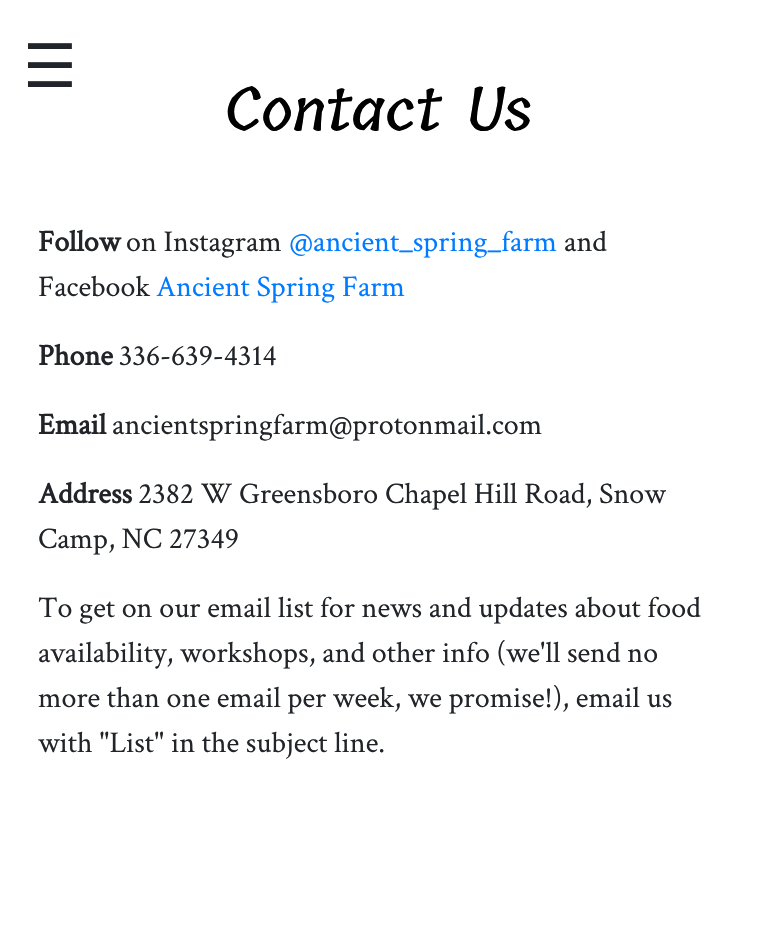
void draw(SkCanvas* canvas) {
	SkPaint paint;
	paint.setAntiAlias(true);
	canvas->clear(0xffffffff);
	SkFont f1(fontMgr->matchFamilyStyle("DejaVu Sans", SkFontStyle::Normal()), 60);
	f1.setSubpixel(true);
	paint.setColor(0xff212529);
	canvas->drawString("☰", 23, 87, f1, paint);
	SkFont f2(fontMgr->matchFamilyStyle("Tillana", SkFontStyle(500, SkFontStyle::kNormal_Width, SkFontStyle::kUpright_Slant)), 60);
	f2.setSubpixel(true);
	paint.setColor(0xff000000);
	canvas->drawString("Contact Us", 225, 131, f2, paint);
	SkFont f3(fontMgr->matchFamilyStyle("Crimson Text", SkFontStyle::Bold()), 30);
	f3.setSubpixel(true);
	paint.setColor(0xff212529);
	canvas->drawString("Follow", 38, 251, f3, paint);
	SkFont f4(fontMgr->matchFamilyStyle("Crimson Text", SkFontStyle::Normal()), 30);
	f4.setSubpixel(true);
	canvas->drawString("on Instagram", 126, 251, f4, paint);
	paint.setColor(0xff007bff);
	canvas->drawString("@ancient_spring_farm", 289, 251, f4, paint);
	paint.setColor(0xff212529);
	canvas->drawString("and", 564, 251, f4, paint);
	canvas->drawString("Facebook", 38, 296, f4, paint);
	paint.setColor(0xff007bff);
	canvas->drawString("Ancient Spring Farm", 156, 296, f4, paint);
	paint.setColor(0xff212529);
	canvas->drawString("Phone", 38, 365, f3, paint);
	canvas->drawString("336-639-4314", 119, 365, f4, paint);
	canvas->drawString("Email", 38, 434, f3, paint);
	canvas->drawString("ancientspringfarm@protonmail.com", 112, 434, f4, paint);
	canvas->drawString("Address", 38, 503, f3, paint);
	canvas->drawString("2382 W Greensboro Chapel Hill Road, Snow", 138, 503, f4, paint);
	canvas->drawString("Camp, NC 27349", 38, 548, f4, paint);
	canvas->drawString("To get on our email list for news and updates about food", 38, 617, f4, paint);
	canvas->drawString("availability, workshops, and other info (we'll send no", 38, 662, f4, paint);
	canvas->drawString("more than one email per week, we promise!), email us", 38, 707, f4, paint);
	canvas->drawString("with \"List\" in the subject line.", 38, 752, f4, paint);
}
